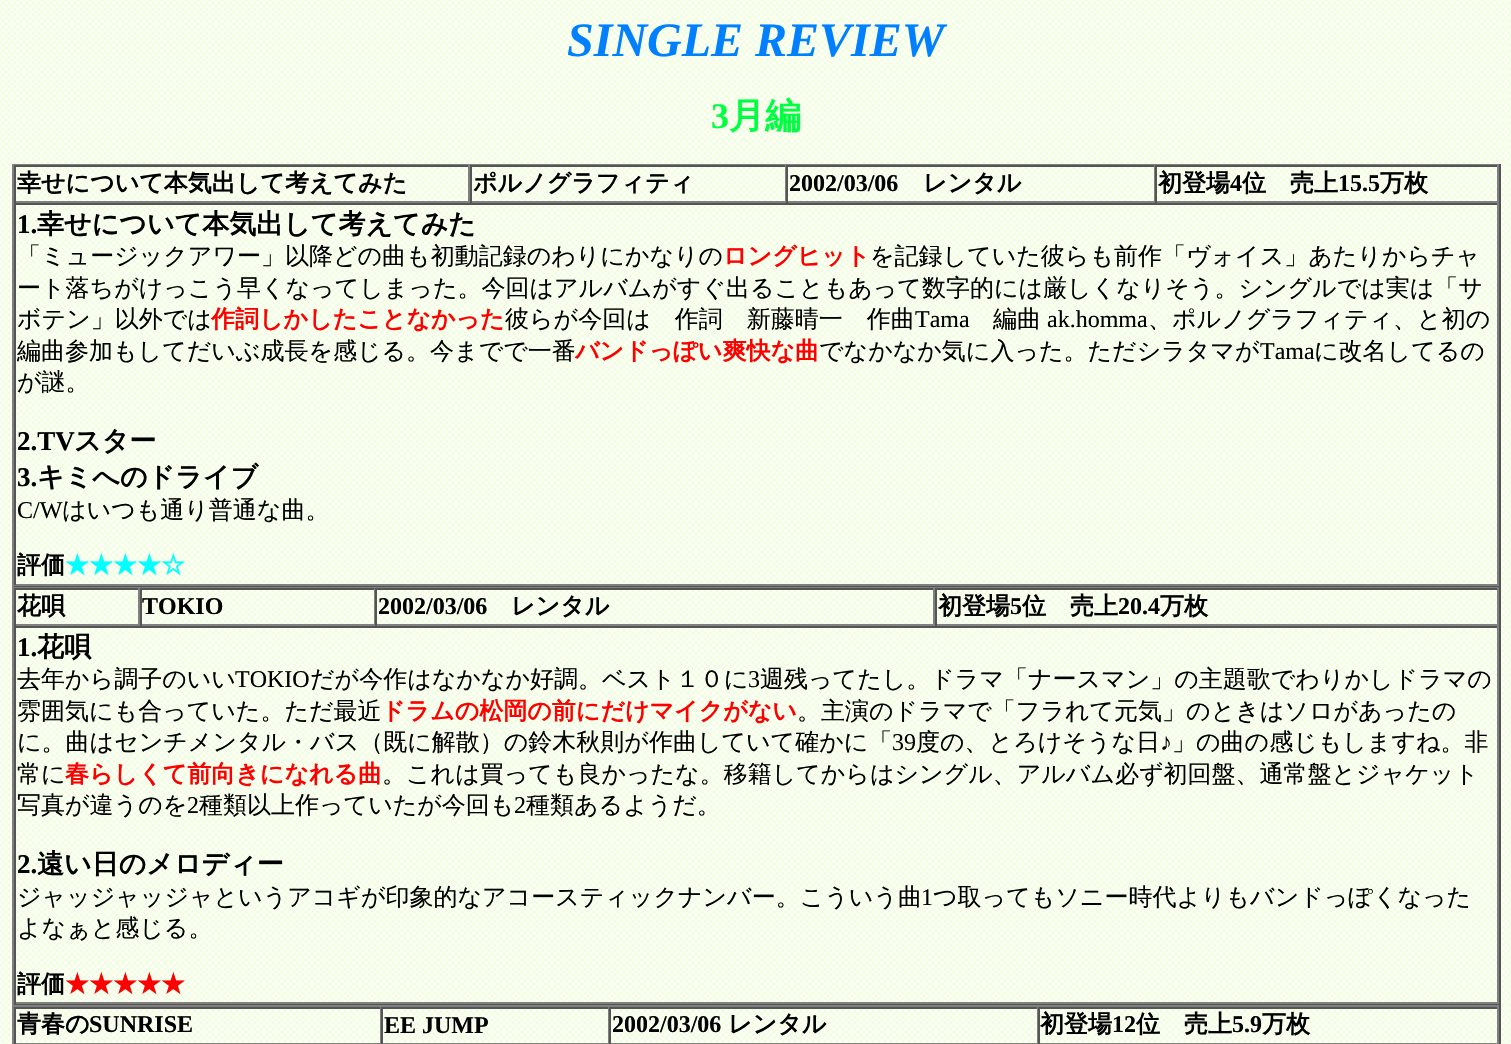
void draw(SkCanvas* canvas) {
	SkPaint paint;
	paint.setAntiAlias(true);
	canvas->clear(0xffffffff);
	canvas->drawImageRect(SkImages::DeferredFromEncodedData(SkData::MakeFromFileName("img1.png")), SkRect::MakeXYWH(0, 0, 1511, 1044), SkSamplingOptions());
	SkFont f1(fontMgr->matchFamilyStyle("Liberation Serif", SkFontStyle::BoldItalic()), 48);
	f1.setSubpixel(true);
	paint.setColor(0xff0080ff);
	canvas->drawString("SINGLE REVIEW", 567, 56, f1, paint);
	SkFont f2(fontMgr->matchFamilyStyle("Liberation Serif", SkFontStyle::Bold()), 36);
	f2.setSubpixel(true);
	paint.setColor(0xff00ff40);
	canvas->drawString("3", 711, 128, f2, paint);
	SkFont f3(fontMgr->matchFamilyStyle("WenQuanYi Zen Hei", SkFontStyle::Bold()), 36);
	f3.setSubpixel(true);
	canvas->drawString("月編", 729, 128, f3, paint);
	paint.setColor(0xff808080);
	canvas->drawRect(SkRect::MakeXYWH(12, 164, 1488, 1), paint);
	paint.setColor(0xff555555);
	canvas->drawRect(SkRect::MakeXYWH(1499, 164, 2, 423), paint);
	canvas->drawRect(SkRect::MakeXYWH(12, 585, 1488, 2), paint);
	paint.setColor(0xff808080);
	canvas->drawRect(SkRect::MakeXYWH(12, 164, 2, 423), paint);
	paint.setColor(0xff555555);
	canvas->drawRect(SkRect::MakeXYWH(14, 165, 1485, 2), paint);
	paint.setColor(0xff808080);
	canvas->drawRect(SkRect::MakeXYWH(468, 165, 2, 38), paint);
	canvas->drawRect(SkRect::MakeXYWH(14, 201, 456, 2), paint);
	paint.setColor(0xff555555);
	canvas->drawRect(SkRect::MakeXYWH(14, 165, 2, 38), paint);
	SkFont f4(fontMgr->matchFamilyStyle("WenQuanYi Zen Hei", SkFontStyle::Bold()), 24);
	f4.setSubpixel(true);
	paint.setColor(0xff000000);
	canvas->drawString("幸せについて本気出して考えてみた", 17, 191, f4, paint);
	paint.setColor(0xff808080);
	canvas->drawRect(SkRect::MakeXYWH(785, 165, 1, 38), paint);
	canvas->drawRect(SkRect::MakeXYWH(470, 201, 316, 2), paint);
	paint.setColor(0xff555555);
	canvas->drawRect(SkRect::MakeXYWH(470, 165, 2, 38), paint);
	paint.setColor(0xff000000);
	canvas->drawString("ポルノグラフィティ", 473, 191, f4, paint);
	paint.setColor(0xff808080);
	canvas->drawRect(SkRect::MakeXYWH(1154, 165, 1, 38), paint);
	canvas->drawRect(SkRect::MakeXYWH(786, 201, 369, 2), paint);
	paint.setColor(0xff555555);
	canvas->drawRect(SkRect::MakeXYWH(786, 165, 2, 38), paint);
	SkFont f5(fontMgr->matchFamilyStyle("Liberation Serif", SkFontStyle::Bold()), 24);
	f5.setSubpixel(true);
	paint.setColor(0xff000000);
	canvas->drawString("2002/03/06", 789, 191, f5, paint);
	canvas->drawString("レンタル", 923, 191, f4, paint);
	paint.setColor(0xff808080);
	canvas->drawRect(SkRect::MakeXYWH(1497, 165, 2, 38), paint);
	canvas->drawRect(SkRect::MakeXYWH(1155, 201, 344, 2), paint);
	paint.setColor(0xff555555);
	canvas->drawRect(SkRect::MakeXYWH(1155, 165, 2, 38), paint);
	paint.setColor(0xff000000);
	canvas->drawString("初登場", 1158, 191, f4, paint);
	canvas->drawString("4", 1230, 191, f5, paint);
	canvas->drawString("位　売上", 1242, 191, f4, paint);
	canvas->drawString("15.5", 1338, 191, f5, paint);
	canvas->drawString("万枚", 1380, 191, f4, paint);
	paint.setColor(0xff555555);
	canvas->drawRect(SkRect::MakeXYWH(14, 203, 1485, 2), paint);
	paint.setColor(0xff808080);
	canvas->drawRect(SkRect::MakeXYWH(1497, 203, 2, 382), paint);
	canvas->drawRect(SkRect::MakeXYWH(14, 584, 1485, 2), paint);
	paint.setColor(0xff555555);
	canvas->drawRect(SkRect::MakeXYWH(14, 203, 2, 382), paint);
	SkFont f6(fontMgr->matchFamilyStyle("Liberation Serif", SkFontStyle::Bold()), 27);
	f6.setSubpixel(true);
	paint.setColor(0xff000000);
	canvas->drawString("1.", 17, 233, f6, paint);
	SkFont f7(fontMgr->matchFamilyStyle("WenQuanYi Zen Hei", SkFontStyle::Bold()), 27);
	f7.setSubpixel(true);
	canvas->drawString("幸せについて本気出して考えてみた", 37, 233, f7, paint);
	SkFont f8(fontMgr->matchFamilyStyle("WenQuanYi Zen Hei", SkFontStyle(500, SkFontStyle::kNormal_Width, SkFontStyle::kUpright_Slant)), 24);
	f8.setSubpixel(true);
	canvas->drawString("「ミュージックアワー」以降どの曲も初動記録のわりにかなりの", 17, 264, f8, paint);
	paint.setColor(0xffff0000);
	canvas->drawString("ロングヒット", 723, 264, f4, paint);
	paint.setColor(0xff000000);
	canvas->drawString("を記録していた彼らも前作「ヴォイス」あたりからチャ", 870, 264, f8, paint);
	canvas->drawString("ート落ちがけっこう早くなってしまった。今回はアルバムがすぐ出ることもあって数字的には厳しくなりそう。シングルでは実は「サ", 17, 296, f8, paint);
	canvas->drawString("ボテン」以外では", 17, 327, f8, paint);
	paint.setColor(0xffff0000);
	canvas->drawString("作詞しかしたことなかった", 211, 327, f4, paint);
	paint.setColor(0xff000000);
	canvas->drawString("彼らが今回は　作詞　新藤晴一　作曲", 505, 327, f8, paint);
	SkFont f9(fontMgr->matchFamilyStyle("Liberation Serif", SkFontStyle::Normal()), 24);
	f9.setSubpixel(true);
	canvas->drawString("Tama", 915, 327, f9, paint);
	canvas->drawString("編曲", 993, 327, f8, paint);
	canvas->drawString("ak.homma", 1047, 327, f9, paint);
	canvas->drawString("、ポルノグラフィティ、と初の", 1148, 327, f8, paint);
	canvas->drawString("編曲参加もしてだいぶ成長を感じる。今までで一番", 17, 359, f8, paint);
	paint.setColor(0xffff0000);
	canvas->drawString("バンドっぽい爽快な曲", 575, 359, f4, paint);
	paint.setColor(0xff000000);
	canvas->drawString("でなかなか気に入った。ただシラタマが", 819, 359, f8, paint);
	canvas->drawString("Tama", 1260, 359, f9, paint);
	canvas->drawString("に改名してるの", 1314, 359, f8, paint);
	canvas->drawString("が謎。", 17, 390, f8, paint);
	canvas->drawString("2.TV", 17, 450, f6, paint);
	canvas->drawString("スター", 74, 450, f7, paint);
	canvas->drawString("3.", 17, 486, f6, paint);
	canvas->drawString("キミへのドライブ", 37, 486, f7, paint);
	canvas->drawString("C/W", 17, 518, f9, paint);
	canvas->drawString("はいつも通り普通な曲。", 62, 518, f8, paint);
	canvas->drawString("評価", 17, 573, f4, paint);
	paint.setColor(0xff00ffff);
	canvas->drawString("★★★★☆", 65, 573, f4, paint);
	paint.setColor(0xff808080);
	canvas->drawRect(SkRect::MakeXYWH(12, 587, 1488, 1), paint);
	paint.setColor(0xff555555);
	canvas->drawRect(SkRect::MakeXYWH(1499, 587, 2, 418), paint);
	canvas->drawRect(SkRect::MakeXYWH(12, 1004, 1488, 1), paint);
	paint.setColor(0xff808080);
	canvas->drawRect(SkRect::MakeXYWH(12, 587, 2, 418), paint);
	paint.setColor(0xff555555);
	canvas->drawRect(SkRect::MakeXYWH(14, 588, 1485, 2), paint);
	paint.setColor(0xff808080);
	canvas->drawRect(SkRect::MakeXYWH(138, 588, 2, 38), paint);
	canvas->drawRect(SkRect::MakeXYWH(14, 624, 126, 2), paint);
	paint.setColor(0xff555555);
	canvas->drawRect(SkRect::MakeXYWH(14, 588, 2, 38), paint);
	paint.setColor(0xff000000);
	canvas->drawString("花唄", 17, 614, f4, paint);
	paint.setColor(0xff808080);
	canvas->drawRect(SkRect::MakeXYWH(374, 588, 1, 38), paint);
	canvas->drawRect(SkRect::MakeXYWH(140, 624, 235, 2), paint);
	paint.setColor(0xff555555);
	canvas->drawRect(SkRect::MakeXYWH(140, 588, 2, 38), paint);
	paint.setColor(0xff000000);
	canvas->drawString("TOKIO", 142, 614, f5, paint);
	paint.setColor(0xff808080);
	canvas->drawRect(SkRect::MakeXYWH(933, 588, 2, 38), paint);
	canvas->drawRect(SkRect::MakeXYWH(375, 624, 560, 2), paint);
	paint.setColor(0xff555555);
	canvas->drawRect(SkRect::MakeXYWH(375, 588, 2, 38), paint);
	paint.setColor(0xff000000);
	canvas->drawString("2002/03/06", 378, 614, f5, paint);
	canvas->drawString("レンタル", 511, 614, f4, paint);
	paint.setColor(0xff808080);
	canvas->drawRect(SkRect::MakeXYWH(1497, 588, 2, 38), paint);
	canvas->drawRect(SkRect::MakeXYWH(935, 624, 564, 2), paint);
	paint.setColor(0xff555555);
	canvas->drawRect(SkRect::MakeXYWH(935, 588, 2, 38), paint);
	paint.setColor(0xff000000);
	canvas->drawString("初登場", 938, 614, f4, paint);
	canvas->drawString("5", 1010, 614, f5, paint);
	canvas->drawString("位　売上", 1022, 614, f4, paint);
	canvas->drawString("20.4", 1118, 614, f5, paint);
	canvas->drawString("万枚", 1160, 614, f4, paint);
	paint.setColor(0xff555555);
	canvas->drawRect(SkRect::MakeXYWH(14, 626, 1485, 2), paint);
	paint.setColor(0xff808080);
	canvas->drawRect(SkRect::MakeXYWH(1497, 626, 2, 378), paint);
	canvas->drawRect(SkRect::MakeXYWH(14, 1002, 1485, 2), paint);
	paint.setColor(0xff555555);
	canvas->drawRect(SkRect::MakeXYWH(14, 626, 2, 378), paint);
	paint.setColor(0xff000000);
	canvas->drawString("1.", 17, 656, f6, paint);
	canvas->drawString("花唄", 37, 656, f7, paint);
	canvas->drawString("去年から調子のいい", 17, 687, f8, paint);
	canvas->drawString("TOKIO", 235, 687, f9, paint);
	canvas->drawString("だが今作はなかなか好調。ベスト１０に", 310, 687, f8, paint);
	canvas->drawString("3", 748, 687, f9, paint);
	canvas->drawString("週残ってたし。ドラマ「ナースマン」の主題歌でわりかしドラマの", 760, 687, f8, paint);
	canvas->drawString("雰囲気にも合っていた。ただ最近", 17, 719, f8, paint);
	paint.setColor(0xffff0000);
	canvas->drawString("ドラムの松岡の前にだけマイクがない", 381, 719, f4, paint);
	paint.setColor(0xff000000);
	canvas->drawString("。主演のドラマで「フラれて元気」のときはソロがあったの", 797, 719, f8, paint);
	canvas->drawString("に。曲はセンチメンタル・バス（既に解散）の鈴木秋則が作曲していて確かに「", 17, 750, f8, paint);
	canvas->drawString("39", 892, 750, f9, paint);
	canvas->drawString("度の、とろけそうな日", 916, 750, f8, paint);
	canvas->drawString("♪", 1160, 750, f9, paint);
	canvas->drawString("」の曲の感じもしますね。非", 1172, 750, f8, paint);
	canvas->drawString("常に", 17, 782, f8, paint);
	paint.setColor(0xffff0000);
	canvas->drawString("春らしくて前向きになれる曲", 65, 782, f4, paint);
	paint.setColor(0xff000000);
	canvas->drawString("。これは買っても良かったな。移籍してからはシングル、アルバム必ず初回盤、通常盤とジャケット", 382, 782, f8, paint);
	canvas->drawString("写真が違うのを", 17, 813, f8, paint);
	canvas->drawString("2", 187, 813, f9, paint);
	canvas->drawString("種類以上作っていたが今回も", 199, 813, f8, paint);
	canvas->drawString("2", 514, 813, f9, paint);
	canvas->drawString("種類あるようだ。", 526, 813, f8, paint);
	canvas->drawString("2.", 17, 873, f6, paint);
	canvas->drawString("遠い日のメロディー", 37, 873, f7, paint);
	canvas->drawString("ジャッジャッジャというアコギが印象的なアコースティックナンバー。こういう曲", 17, 905, f8, paint);
	canvas->drawString("1", 921, 905, f9, paint);
	canvas->drawString("つ取ってもソニー時代よりもバンドっぽくなった", 933, 905, f8, paint);
	canvas->drawString("よなぁと感じる。", 17, 936, f8, paint);
	canvas->drawString("評価", 17, 992, f4, paint);
	paint.setColor(0xffff0000);
	canvas->drawString("★★★★★", 65, 992, f4, paint);
	paint.setColor(0xff808080);
	canvas->drawRect(SkRect::MakeXYWH(12, 1005, 1488, 2), paint);
	paint.setColor(0xff555555);
	canvas->drawRect(SkRect::MakeXYWH(1499, 1005, 2, 39), paint);
	paint.setColor(0xff808080);
	canvas->drawRect(SkRect::MakeXYWH(12, 1005, 2, 39), paint);
	paint.setColor(0xff555555);
	canvas->drawRect(SkRect::MakeXYWH(14, 1007, 1485, 2), paint);
	paint.setColor(0xff808080);
	canvas->drawRect(SkRect::MakeXYWH(380, 1007, 1, 37), paint);
	canvas->drawRect(SkRect::MakeXYWH(14, 1043, 367, 1), paint);
	paint.setColor(0xff555555);
	canvas->drawRect(SkRect::MakeXYWH(14, 1007, 2, 37), paint);
	paint.setColor(0xff000000);
	canvas->drawString("青春の", 17, 1032, f4, paint);
	canvas->drawString("SUNRISE", 89, 1032, f5, paint);
	paint.setColor(0xff808080);
	canvas->drawRect(SkRect::MakeXYWH(608, 1007, 1, 37), paint);
	canvas->drawRect(SkRect::MakeXYWH(381, 1043, 228, 1), paint);
	paint.setColor(0xff555555);
	canvas->drawRect(SkRect::MakeXYWH(381, 1007, 2, 37), paint);
	paint.setColor(0xff000000);
	canvas->drawString("EE JUMP", 384, 1033, f5, paint);
	paint.setColor(0xff808080);
	canvas->drawRect(SkRect::MakeXYWH(1037, 1007, 1, 37), paint);
	canvas->drawRect(SkRect::MakeXYWH(609, 1043, 429, 1), paint);
	paint.setColor(0xff555555);
	canvas->drawRect(SkRect::MakeXYWH(609, 1007, 2, 37), paint);
	paint.setColor(0xff000000);
	canvas->drawString("2002/03/06", 612, 1032, f5, paint);
	canvas->drawString("レンタル", 728, 1032, f4, paint);
	paint.setColor(0xff808080);
	canvas->drawRect(SkRect::MakeXYWH(1497, 1007, 2, 37), paint);
	canvas->drawRect(SkRect::MakeXYWH(1038, 1043, 461, 1), paint);
	paint.setColor(0xff555555);
	canvas->drawRect(SkRect::MakeXYWH(1038, 1007, 2, 37), paint);
	paint.setColor(0xff000000);
	canvas->drawString("初登場", 1040, 1032, f4, paint);
	canvas->drawString("12", 1112, 1032, f5, paint);
	canvas->drawString("位　売上", 1136, 1032, f4, paint);
	canvas->drawString("5.9", 1232, 1032, f5, paint);
	canvas->drawString("万枚", 1262, 1032, f4, paint);
}
